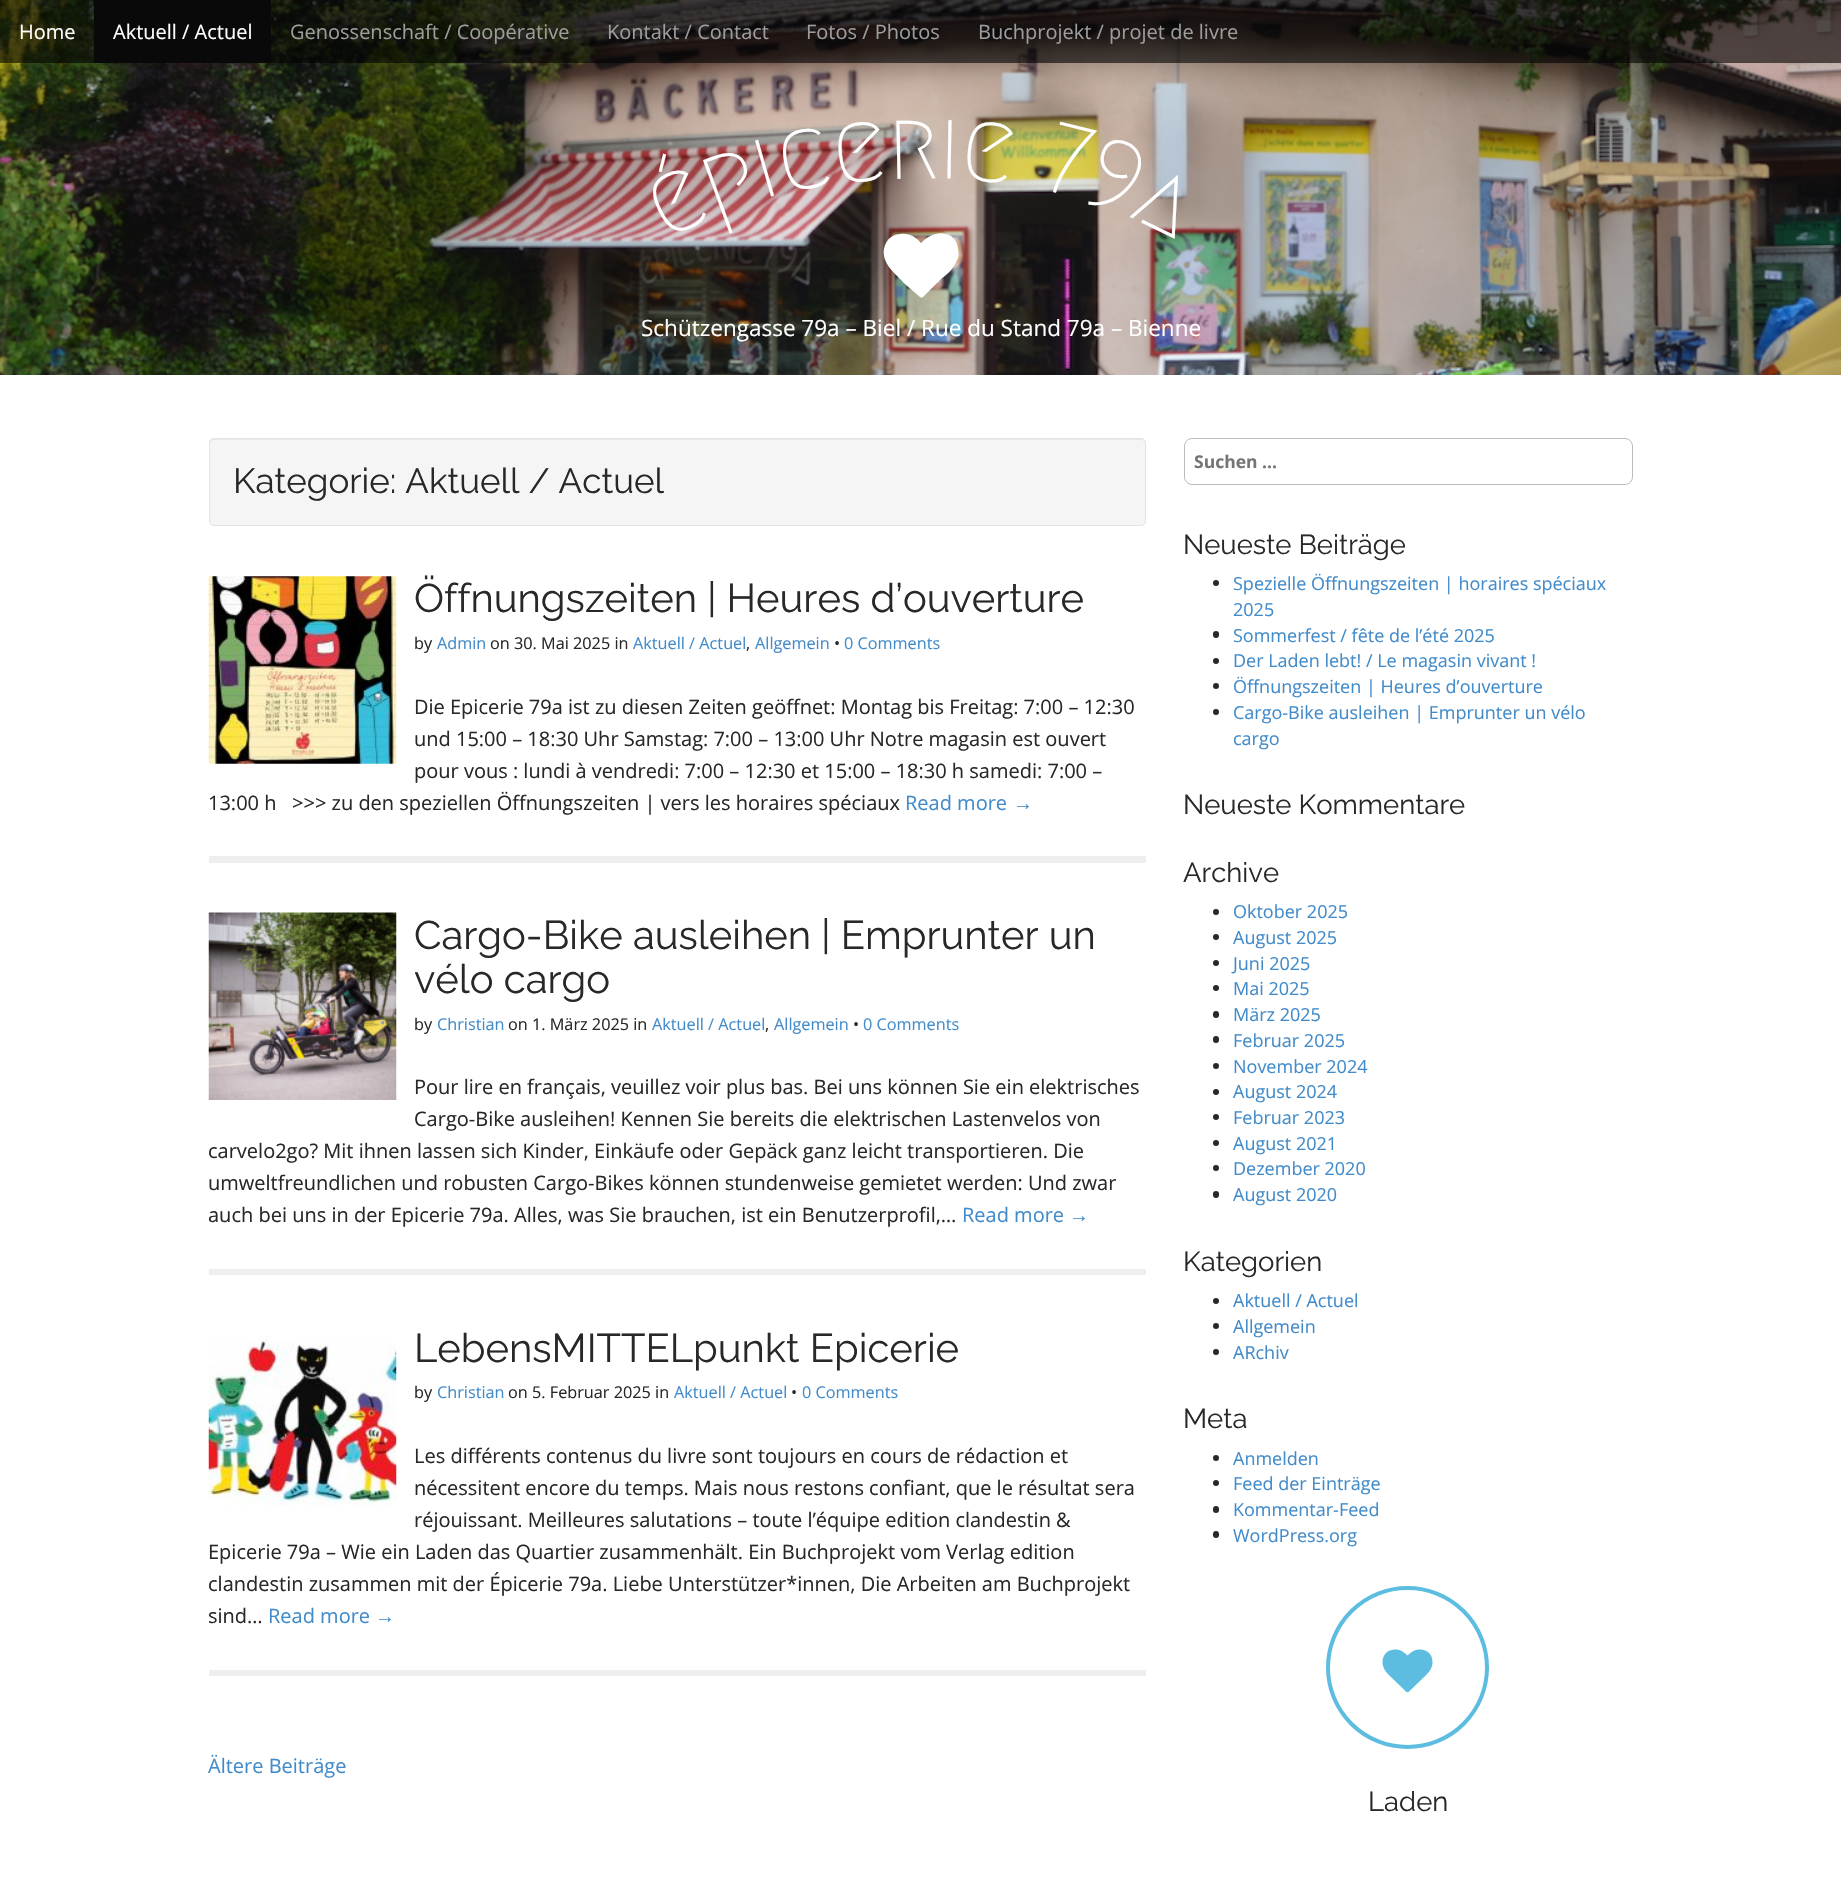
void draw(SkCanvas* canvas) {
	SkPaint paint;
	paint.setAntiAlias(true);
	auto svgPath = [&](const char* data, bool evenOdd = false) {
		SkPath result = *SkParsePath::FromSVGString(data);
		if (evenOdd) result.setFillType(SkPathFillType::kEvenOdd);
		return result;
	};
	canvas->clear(0xffffffff);
	canvas->drawImageRect(SkImages::DeferredFromEncodedData(SkData::MakeFromFileName("img1.png")), SkRect::MakeXYWH(0, 0, 1841, 375), SkSamplingOptions());
	paint.setColor(0x99000000);
	canvas->drawRect(SkRect::MakeXYWH(0, 0, 1841, 63), paint);
	SkFont f1(fontMgr->matchFamilyStyle("Open Sans", SkFontStyle::Normal()), 20);
	f1.setSubpixel(true);
	paint.setColor(0xffffffff);
	canvas->drawString("Home", 19, 39, f1, paint);
	paint.setColor(0xff090909);
	canvas->drawRect(SkRect::MakeXYWH(94, 0, 177, 63), paint);
	paint.setColor(0xffffffff);
	canvas->drawString("Aktuell / Actuel", 113, 39, f1, paint);
	paint.setColor(0xff9d9d9d);
	canvas->drawString("Genossenschaft / Coopérative", 290, 39, f1, paint);
	canvas->drawString("Kontakt / Contact", 607, 39, f1, paint);
	canvas->drawString("Fotos / Photos", 806, 39, f1, paint);
	canvas->drawString("Buchprojekt / projet de livre", 978, 39, f1, paint);
	SkFont f2(fontMgr->matchFamilyStyle("Megrim", SkFontStyle(500, SkFontStyle::kNormal_Width, SkFontStyle::kUpright_Slant)), 100);
	f2.setSubpixel(true);
	paint.setColor(0xffffffff);
	canvas->save();
	canvas->rotate(-26, 665, 240);
	canvas->drawString("é", 665, 240, f2, paint);
	canvas->restore();
	canvas->save();
	canvas->rotate(-20, 714, 218);
	canvas->drawString("p", 714, 218, f2, paint);
	canvas->restore();
	canvas->save();
	canvas->rotate(-16, 762, 199);
	canvas->drawString("i", 762, 199, f2, paint);
	canvas->restore();
	canvas->save();
	canvas->rotate(-11, 783, 193);
	canvas->drawString("c", 783, 193, f2, paint);
	canvas->restore();
	canvas->save();
	canvas->rotate(-6, 835, 184);
	canvas->drawString("e", 835, 184, f2, paint);
	canvas->restore();
	canvas->save();
	canvas->rotate(-1, 888, 179);
	canvas->drawString("r", 888, 179, f2, paint);
	canvas->restore();
	canvas->save();
	canvas->rotate(1, 938, 178);
	canvas->drawString("i", 938, 178, f2, paint);
	canvas->restore();
	canvas->save();
	canvas->rotate(6, 958, 178);
	canvas->drawString("e", 958, 178, f2, paint);
	canvas->restore();
	canvas->save();
	canvas->rotate(14, 1041, 189);
	canvas->drawString("7", 1041, 189, f2, paint);
	canvas->restore();
	canvas->save();
	canvas->rotate(20, 1079, 200);
	canvas->drawString("9", 1079, 200, f2, paint);
	canvas->restore();
	canvas->save();
	canvas->rotate(26, 1128, 216);
	canvas->drawString("a", 1128, 216, f2, paint);
	canvas->restore();
	canvas->drawPath(svgPath("M923 297C922 298 921 298 920 297L906 285C896 274 877 261 886 243C889 237 895 234 901 234C909 233 916 237 921 243C929 235 940 230 951 236C955 239 958 244 958 249C959 254 959 258 956 262C953 270 946 275 940 280Z"), paint);
	SkFont f3(fontMgr->matchFamilyStyle("Open Sans", SkFontStyle::Normal()), 22.5);
	f3.setSubpixel(true);
	canvas->drawString("Schützengasse 79a – Biel / Rue du Stand 79a – Bienne", 641, 336, f3, paint);
	paint.setColor(0xfff5f5f5);
	canvas->drawRoundRect(SkRect::MakeXYWH(209, 438, 937, 88), 5, 5, paint);
	paint.setColor(0xffe9e9e9);
	canvas->drawPath(svgPath("M214 440H1141C1143 440 1145 442 1145 444C1145 441 1144 439 1141 439H214C211 439 210 441 210 444C210 442 212 440 214 440Z"), paint);
	paint.setStroke(true);
	paint.setStrokeWidth(1);
	paint.setColor(0xffe3e3e3);
	canvas->drawRoundRect(SkRect::MakeXYWH(209.5, 438.5, 936, 87), 4.5, 4.5, paint);
	SkFont f4(fontMgr->matchFamilyStyle("Raleway", SkFontStyle(100, SkFontStyle::kNormal_Width, SkFontStyle::kUpright_Slant)), 35);
	f4.setSubpixel(true);
	paint.setStroke(false);
	paint.setColor(0xff282828);
	canvas->drawString("Kategorie: Aktuell / Actuel", 233, 493, f4, paint);
	paint.setColor(0xffeeeeee);
	canvas->drawRect(SkRect::MakeXYWH(209, 856, 937, 7), paint);
	canvas->drawImageRect(SkImages::DeferredFromEncodedData(SkData::MakeFromFileName("img2.png")), SkRect::MakeXYWH(208, 576, 189, 188), SkSamplingOptions());
	SkFont f5(fontMgr->matchFamilyStyle("Raleway", SkFontStyle(100, SkFontStyle::kNormal_Width, SkFontStyle::kUpright_Slant)), 40);
	f5.setSubpixel(true);
	paint.setColor(0xff282828);
	canvas->drawString("Öffnungszeiten | Heures d’ouverture", 414, 612, f5, paint);
	SkFont f6(fontMgr->matchFamilyStyle("Open Sans", SkFontStyle::Normal()), 16.25);
	f6.setSubpixel(true);
	canvas->drawString("by", 414, 649, f6, paint);
	paint.setColor(0xff428bca);
	canvas->drawString("Admin", 437, 649, f6, paint);
	paint.setColor(0xff282828);
	canvas->drawString("on 30. Mai 2025 in", 490, 649, f6, paint);
	paint.setColor(0xff428bca);
	canvas->drawString("Aktuell / Actuel", 633, 649, f6, paint);
	canvas->drawString("Allgemein", 755, 649, f6, paint);
	paint.setColor(0xff282828);
	canvas->drawString("•", 834, 649, f6, paint);
	paint.setColor(0xff428bca);
	canvas->drawString("0 Comments", 844, 649, f6, paint);
	paint.setColor(0xff282828);
	canvas->drawString(",", 746, 649, f6, paint);
	canvas->drawString("Die Epicerie 79a ist zu diesen Zeiten geöffnet: Montag bis Freitag: 7:00 – 12:30", 414, 714, f1, paint);
	canvas->drawString("und 15:00 – 18:30 Uhr Samstag: 7:00 – 13:00 Uhr Notre magasin est ouvert", 414, 746, f1, paint);
	canvas->drawString("pour vous : lundi à vendredi: 7:00 – 12:30 et 15:00 – 18:30 h samedi: 7:00 –", 414, 778, f1, paint);
	canvas->drawString("13:00 h   >>> zu den speziellen Öffnungszeiten | vers les horaires spéciaux", 208, 810, f1, paint);
	paint.setColor(0xff428bca);
	canvas->drawString("Read more", 905, 810, f1, paint);
	SkFont f7(fontMgr->matchFamilyStyle("Liberation Sans", SkFontStyle::Normal()), 20);
	f7.setSubpixel(true);
	canvas->drawString("→", 1013, 810, f7, paint);
	paint.setColor(0xffeeeeee);
	canvas->drawRect(SkRect::MakeXYWH(209, 1269, 937, 6), paint);
	canvas->drawImageRect(SkImages::DeferredFromEncodedData(SkData::MakeFromFileName("img3.png")), SkRect::MakeXYWH(208, 912, 189, 188), SkSamplingOptions());
	paint.setColor(0xff282828);
	canvas->drawString("Cargo-Bike ausleihen | Emprunter un", 414, 949, f5, paint);
	canvas->drawString("vélo cargo", 414, 993, f5, paint);
	canvas->drawString("by", 414, 1030, f6, paint);
	paint.setColor(0xff428bca);
	canvas->drawString("Christian", 437, 1030, f6, paint);
	paint.setColor(0xff282828);
	canvas->drawString("on 1. März 2025 in", 508, 1030, f6, paint);
	paint.setColor(0xff428bca);
	canvas->drawString("Aktuell / Actuel", 652, 1030, f6, paint);
	canvas->drawString("Allgemein", 774, 1030, f6, paint);
	paint.setColor(0xff282828);
	canvas->drawString("•", 853, 1030, f6, paint);
	paint.setColor(0xff428bca);
	canvas->drawString("0 Comments", 863, 1030, f6, paint);
	paint.setColor(0xff282828);
	canvas->drawString(",", 765, 1030, f6, paint);
	canvas->drawString("Pour lire en français, veuillez voir plus bas. Bei uns können Sie ein elektrisches", 414, 1094, f1, paint);
	canvas->drawString("Cargo-Bike ausleihen! Kennen Sie bereits die elektrischen Lastenvelos von", 414, 1126, f1, paint);
	canvas->drawString("carvelo2go? Mit ihnen lassen sich Kinder, Einkäufe oder Gepäck ganz leicht transportieren. Die", 208, 1158, f1, paint);
	canvas->drawString("umweltfreundlichen und robusten Cargo-Bikes können stundenweise gemietet werden: Und zwar", 208, 1190, f1, paint);
	canvas->drawString("auch bei uns in der Epicerie 79a. Alles, was Sie brauchen, ist ein Benutzerprofil,…", 208, 1222, f1, paint);
	paint.setColor(0xff428bca);
	canvas->drawString("Read more", 962, 1222, f1, paint);
	canvas->drawString("→", 1069, 1222, f7, paint);
	paint.setColor(0xffeeeeee);
	canvas->drawRect(SkRect::MakeXYWH(209, 1670, 937, 6), paint);
	canvas->drawImageRect(SkImages::DeferredFromEncodedData(SkData::MakeFromFileName("img4.png")), SkRect::MakeXYWH(208, 1335, 189, 171), SkSamplingOptions());
	paint.setColor(0xff282828);
	canvas->drawString("LebensMITTELpunkt Epicerie", 414, 1362, f5, paint);
	canvas->drawString("by", 414, 1398, f6, paint);
	paint.setColor(0xff428bca);
	canvas->drawString("Christian", 437, 1398, f6, paint);
	paint.setColor(0xff282828);
	canvas->drawString("on 5. Februar 2025 in", 508, 1398, f6, paint);
	paint.setColor(0xff428bca);
	canvas->drawString("Aktuell / Actuel", 674, 1398, f6, paint);
	paint.setColor(0xff282828);
	canvas->drawString("•", 791, 1398, f6, paint);
	paint.setColor(0xff428bca);
	canvas->drawString("0 Comments", 802, 1398, f6, paint);
	paint.setColor(0xff282828);
	canvas->drawString("Les différents contenus du livre sont toujours en cours de rédaction et", 414, 1463, f1, paint);
	canvas->drawString("nécessitent encore du temps. Mais nous restons confiant, que le résultat sera", 414, 1495, f1, paint);
	canvas->drawString("réjouissant. Meilleures salutations – toute l’équipe edition clandestin &", 414, 1527, f1, paint);
	canvas->drawString("Epicerie 79a – Wie ein Laden das Quartier zusammenhält. Ein Buchprojekt vom Verlag edition", 208, 1559, f1, paint);
	canvas->drawString("clandestin zusammen mit der Épicerie 79a. Liebe Unterstützer*innen, Die Arbeiten am Buchprojekt", 208, 1591, f1, paint);
	canvas->drawString("sind…", 208, 1623, f1, paint);
	paint.setColor(0xff428bca);
	canvas->drawString("Read more", 268, 1623, f1, paint);
	canvas->drawString("→", 375, 1623, f7, paint);
	canvas->drawString("Ältere Beiträge", 208, 1773, f1, paint);
	paint.setStroke(true);
	paint.setColor(0xffbbbbbb);
	canvas->drawRoundRect(SkRect::MakeXYWH(1184.5, 438.5, 448, 46), 7.5, 7.5, paint);
	SkFont f8(fontMgr->matchFamilyStyle("Open Sans", SkFontStyle::Bold()), 17.5);
	f8.setSubpixel(true);
	paint.setStroke(false);
	paint.setColor(0xff757575);
	canvas->drawString("Suchen …", 1194, 468, f8, paint);
	SkFont f9(fontMgr->matchFamilyStyle("Raleway", SkFontStyle(100, SkFontStyle::kNormal_Width, SkFontStyle::kUpright_Slant)), 27.5);
	f9.setSubpixel(true);
	paint.setColor(0xff282828);
	canvas->drawString("Neueste Beiträge", 1183, 554, f9, paint);
	canvas->drawCircle(1216, 583, 3, paint);
	SkFont f10(fontMgr->matchFamilyStyle("Open Sans", SkFontStyle::Normal()), 18);
	f10.setSubpixel(true);
	paint.setColor(0xff428bca);
	canvas->drawString("Spezielle Öffnungszeiten | horaires spéciaux", 1233, 590, f10, paint);
	canvas->drawString("2025", 1233, 616, f10, paint);
	paint.setColor(0xff282828);
	canvas->drawRoundRect(SkRect::MakeXYWH(1213, 631, 6, 7), 3, 3, paint);
	paint.setColor(0xff428bca);
	canvas->drawString("Sommerfest / fête de l’été 2025", 1233, 642, f10, paint);
	paint.setColor(0xff282828);
	canvas->drawCircle(1216, 661, 3, paint);
	paint.setColor(0xff428bca);
	canvas->drawString("Der Laden lebt! / Le magasin vivant !", 1233, 667, f10, paint);
	paint.setColor(0xff282828);
	canvas->drawCircle(1216, 686, 3, paint);
	paint.setColor(0xff428bca);
	canvas->drawString("Öffnungszeiten | Heures d’ouverture", 1233, 693, f10, paint);
	paint.setColor(0xff282828);
	canvas->drawCircle(1216, 712, 3, paint);
	paint.setColor(0xff428bca);
	canvas->drawString("Cargo-Bike ausleihen | Emprunter un vélo", 1233, 719, f10, paint);
	canvas->drawString("cargo", 1233, 745, f10, paint);
	paint.setColor(0xff282828);
	canvas->drawString("Neueste Kommentare", 1183, 814, f9, paint);
	canvas->drawString("Archive", 1183, 882, f9, paint);
	canvas->drawCircle(1216, 912, 3, paint);
	paint.setColor(0xff428bca);
	canvas->drawString("Oktober 2025", 1233, 918, f10, paint);
	paint.setColor(0xff282828);
	canvas->drawCircle(1216, 937, 3, paint);
	paint.setColor(0xff428bca);
	canvas->drawString("August 2025", 1233, 944, f10, paint);
	paint.setColor(0xff282828);
	canvas->drawCircle(1216, 963, 3, paint);
	paint.setColor(0xff428bca);
	canvas->drawString("Juni 2025", 1233, 970, f10, paint);
	paint.setColor(0xff282828);
	canvas->drawCircle(1216, 988, 3, paint);
	paint.setColor(0xff428bca);
	canvas->drawString("Mai 2025", 1233, 995, f10, paint);
	paint.setColor(0xff282828);
	canvas->drawRoundRect(SkRect::MakeXYWH(1213, 1011, 6, 7), 3, 3, paint);
	paint.setColor(0xff428bca);
	canvas->drawString("März 2025", 1233, 1021, f10, paint);
	paint.setColor(0xff282828);
	canvas->drawRoundRect(SkRect::MakeXYWH(1213, 1036, 6, 7), 3, 3, paint);
	paint.setColor(0xff428bca);
	canvas->drawString("Februar 2025", 1233, 1047, f10, paint);
	paint.setColor(0xff282828);
	canvas->drawCircle(1216, 1066, 3, paint);
	paint.setColor(0xff428bca);
	canvas->drawString("November 2024", 1233, 1073, f10, paint);
	paint.setColor(0xff282828);
	canvas->drawCircle(1216, 1092, 3, paint);
	paint.setColor(0xff428bca);
	canvas->drawString("August 2024", 1233, 1098, f10, paint);
	paint.setColor(0xff282828);
	canvas->drawCircle(1216, 1117, 3, paint);
	paint.setColor(0xff428bca);
	canvas->drawString("Februar 2023", 1233, 1124, f10, paint);
	paint.setColor(0xff282828);
	canvas->drawCircle(1216, 1143, 3, paint);
	paint.setColor(0xff428bca);
	canvas->drawString("August 2021", 1233, 1150, f10, paint);
	paint.setColor(0xff282828);
	canvas->drawCircle(1216, 1168, 3, paint);
	paint.setColor(0xff428bca);
	canvas->drawString("Dezember 2020", 1233, 1175, f10, paint);
	paint.setColor(0xff282828);
	canvas->drawRoundRect(SkRect::MakeXYWH(1213, 1191, 6, 7), 3, 3, paint);
	paint.setColor(0xff428bca);
	canvas->drawString("August 2020", 1233, 1201, f10, paint);
	paint.setColor(0xff282828);
	canvas->drawString("Kategorien", 1183, 1271, f9, paint);
	canvas->drawCircle(1216, 1301, 3, paint);
	paint.setColor(0xff428bca);
	canvas->drawString("Aktuell / Actuel", 1233, 1307, f10, paint);
	paint.setColor(0xff282828);
	canvas->drawCircle(1216, 1326, 3, paint);
	paint.setColor(0xff428bca);
	canvas->drawString("Allgemein", 1233, 1333, f10, paint);
	paint.setColor(0xff282828);
	canvas->drawCircle(1216, 1352, 3, paint);
	paint.setColor(0xff428bca);
	canvas->drawString("ARchiv", 1233, 1359, f10, paint);
	paint.setColor(0xff282828);
	canvas->drawString("Meta", 1183, 1428, f9, paint);
	canvas->drawCircle(1216, 1458, 3, paint);
	paint.setColor(0xff428bca);
	canvas->drawString("Anmelden", 1233, 1465, f10, paint);
	paint.setColor(0xff282828);
	canvas->drawCircle(1216, 1483, 3, paint);
	paint.setColor(0xff428bca);
	canvas->drawString("Feed der Einträge", 1233, 1490, f10, paint);
	paint.setColor(0xff282828);
	canvas->drawRoundRect(SkRect::MakeXYWH(1213, 1506, 6, 7), 3, 3, paint);
	paint.setColor(0xff428bca);
	canvas->drawString("Kommentar-Feed", 1233, 1516, f10, paint);
	paint.setColor(0xff282828);
	canvas->drawRoundRect(SkRect::MakeXYWH(1213, 1531, 6, 7), 3, 3, paint);
	paint.setColor(0xff428bca);
	canvas->drawString("WordPress.org", 1233, 1542, f10, paint);
	paint.setStroke(true);
	paint.setStrokeWidth(4);
	paint.setColor(0xff5cbde0);
	canvas->drawCircle(1407.5, 1667.5, 79.5, paint);
	canvas->drawImageRect(SkImages::DeferredFromEncodedData(SkData::MakeFromFileName("img5.png")), SkRect::MakeXYWH(1382, 1649, 51, 44), SkSamplingOptions());
	paint.setStroke(false);
	paint.setColor(0xff282828);
	canvas->drawString("Laden", 1368, 1811, f9, paint);
}
